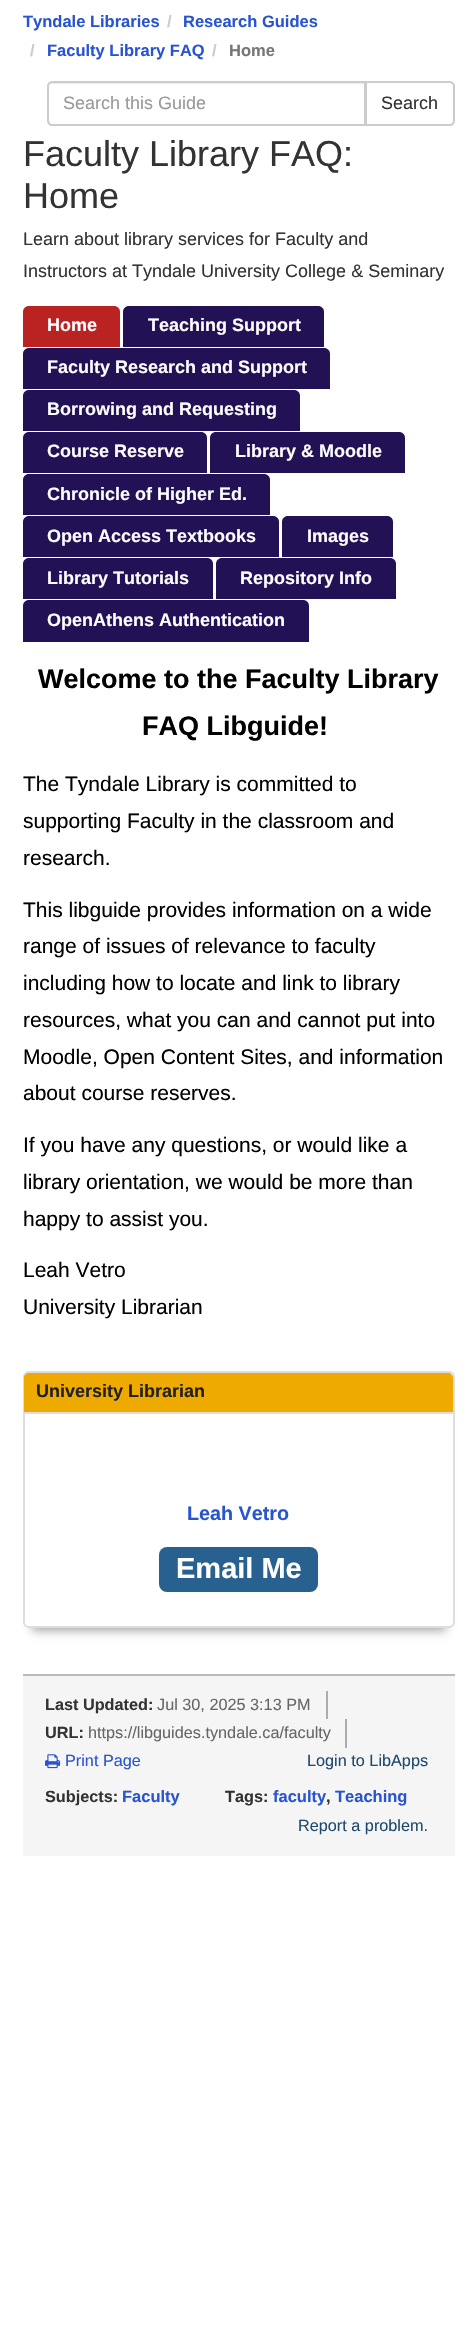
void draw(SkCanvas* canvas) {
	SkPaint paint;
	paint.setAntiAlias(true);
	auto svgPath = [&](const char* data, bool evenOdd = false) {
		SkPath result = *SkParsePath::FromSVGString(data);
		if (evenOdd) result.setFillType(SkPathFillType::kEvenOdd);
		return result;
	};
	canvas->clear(0xffffffff);
	SkFont f1(fontMgr->matchFamilyStyle("Liberation Sans", SkFontStyle::Bold()), 16.5);
	f1.setSubpixel(true);
	paint.setColor(0xff2954d1);
	canvas->drawString("Tyndale Libraries", 23, 27, f1, paint);
	paint.setColor(0xffcccccc);
	canvas->drawString("/", 167, 27, f1, paint);
	paint.setColor(0xff2954d1);
	canvas->drawString("Research Guides", 183, 27, f1, paint);
	paint.setColor(0xffcccccc);
	canvas->drawString("/", 30, 56, f1, paint);
	paint.setColor(0xff2954d1);
	canvas->drawString("Faculty Library FAQ", 47, 56, f1, paint);
	paint.setColor(0xffcccccc);
	canvas->drawString("/", 212, 56, f1, paint);
	paint.setColor(0xff767676);
	canvas->drawString("Home", 229, 56, f1, paint);
	paint.setColor(0xffececec);
	canvas->drawPath(svgPath("M51 84H364V125H365V83H51C49 83 48 85 48 87C48 85 49 84 51 84Z"), paint);
	paint.setStroke(true);
	paint.setStrokeWidth(2);
	paint.setColor(0xffcccccc);
	canvas->drawPath(svgPath("M52 82H365V125H52C50 125 48 123 48 121V86C48 84 50 82 52 82Z"), paint);
	SkFont f2(fontMgr->matchFamilyStyle("Liberation Sans", SkFontStyle::Normal()), 18);
	f2.setSubpixel(true);
	paint.setStroke(false);
	paint.setColor(0xff999999);
	canvas->drawString("Search this Guide", 63, 109, f2, paint);
	paint.setColor(0xffffffff);
	canvas->drawPath(svgPath("M366 82H450C452 82 454 84 454 86V121C454 123 452 125 450 125H366Z"), paint);
	paint.setStroke(true);
	paint.setColor(0xffcccccc);
	canvas->drawPath(svgPath("M366 82H450C452 82 454 84 454 86V121C454 123 452 125 450 125H366Z"), paint);
	paint.setStroke(false);
	paint.setColor(0xff333333);
	canvas->drawString("Search", 381, 109, f2, paint);
	SkFont f3(fontMgr->matchFamilyStyle("Liberation Sans", SkFontStyle::Normal()), 36);
	f3.setSubpixel(true);
	canvas->drawString("Faculty Library FAQ:", 23, 166, f3, paint);
	canvas->drawString("Home", 23, 208, f3, paint);
	canvas->drawString("Learn about library services for Faculty and", 23, 245, f2, paint);
	canvas->drawString("Instructors at Tyndale University College & Seminary", 23, 277, f2, paint);
	paint.setColor(0xffbb2222);
	canvas->drawPath(svgPath("M29 306H114C117.5 306 120 308.5 120 312V347H23V312C23 308.5 25.5 306 29 306Z"), paint);
	SkFont f4(fontMgr->matchFamilyStyle("Liberation Sans", SkFontStyle::Bold()), 18);
	f4.setSubpixel(true);
	paint.setColor(0xffffffff);
	canvas->drawString("Home", 47, 331, f4, paint);
	paint.setColor(0xff221155);
	canvas->drawPath(svgPath("M129 306H318C321.5 306 324 308.5 324 312V347H123V312C123 308.5 125.5 306 129 306Z"), paint);
	paint.setColor(0xffffffff);
	canvas->drawString("Teaching Support", 148, 331, f4, paint);
	paint.setColor(0xff221155);
	canvas->drawPath(svgPath("M29 348H324C327.5 348 330 350.5 330 354V389H23V354C23 350.5 25.5 348 29 348Z"), paint);
	paint.setColor(0xffffffff);
	canvas->drawString("Faculty Research and Support", 47, 373, f4, paint);
	paint.setColor(0xff221155);
	canvas->drawPath(svgPath("M29 390H294C297.5 390 300 392.5 300 396V431H23V396C23 392.5 25.5 390 29 390Z"), paint);
	paint.setColor(0xffffffff);
	canvas->drawString("Borrowing and Requesting", 47, 415, f4, paint);
	paint.setColor(0xff221155);
	canvas->drawPath(svgPath("M29 432H201C204.5 432 207 434.5 207 438V473H23V438C23 434.5 25.5 432 29 432Z"), paint);
	paint.setColor(0xffffffff);
	canvas->drawString("Course Reserve", 47, 457, f4, paint);
	paint.setColor(0xff221155);
	canvas->drawPath(svgPath("M216 432H399C402.5 432 405 434.5 405 438V473H210V438C210 434.5 212.5 432 216 432Z"), paint);
	paint.setColor(0xffffffff);
	canvas->drawString("Library & Moodle", 235, 457, f4, paint);
	paint.setColor(0xff221155);
	canvas->drawPath(svgPath("M29 474H264C267.5 474 270 476.5 270 480V515H23V480C23 476.5 25.5 474 29 474Z"), paint);
	paint.setColor(0xffffffff);
	canvas->drawString("Chronicle of Higher Ed.", 47, 500, f4, paint);
	paint.setColor(0xff221155);
	canvas->drawPath(svgPath("M29 516H273C276.5 516 279 518.5 279 522V557H23V522C23 518.5 25.5 516 29 516Z"), paint);
	paint.setColor(0xffffffff);
	canvas->drawString("Open Access Textbooks", 47, 542, f4, paint);
	paint.setColor(0xff221155);
	canvas->drawPath(svgPath("M288 516H387C390.5 516 393 518.5 393 522V557H282V522C282 518.5 284.5 516 288 516Z"), paint);
	paint.setColor(0xffffffff);
	canvas->drawString("Images", 307, 542, f4, paint);
	paint.setColor(0xff221155);
	canvas->drawPath(svgPath("M29 558H207C210.5 558 213 560.5 213 564V599H23V564C23 560.5 25.5 558 29 558Z"), paint);
	paint.setColor(0xffffffff);
	canvas->drawString("Library Tutorials", 47, 584, f4, paint);
	paint.setColor(0xff221155);
	canvas->drawPath(svgPath("M222 558H390C393.5 558 396 560.5 396 564V599H216V564C216 560.5 218.5 558 222 558Z"), paint);
	paint.setColor(0xffffffff);
	canvas->drawString("Repository Info", 240, 584, f4, paint);
	paint.setColor(0xff221155);
	canvas->drawPath(svgPath("M29 600H303C306.5 600 309 602.5 309 606V642H23V606C23 602.5 25.5 600 29 600Z"), paint);
	paint.setColor(0xffffffff);
	canvas->drawString("OpenAthens Authentication", 47, 626, f4, paint);
	SkFont f5(fontMgr->matchFamilyStyle("Liberation Sans", SkFontStyle::Bold()), 27);
	f5.setSubpixel(true);
	paint.setColor(0xff000000);
	canvas->drawString("Welcome to the Faculty Library", 38, 688, f5, paint);
	canvas->drawString("FAQ Libguide!", 142, 735, f5, paint);
	SkFont f6(fontMgr->matchFamilyStyle("Liberation Sans", SkFontStyle::Normal()), 21);
	f6.setSubpixel(true);
	canvas->drawString("The Tyndale Library is committed to", 23, 791, f6, paint);
	canvas->drawString("supporting Faculty in the classroom and", 23, 828, f6, paint);
	canvas->drawString("research.", 23, 865, f6, paint);
	canvas->drawString("This libguide provides information on a wide", 23, 917, f6, paint);
	canvas->drawString("range of issues of relevance to faculty", 23, 953, f6, paint);
	canvas->drawString("including how to locate and link to library", 23, 990, f6, paint);
	canvas->drawString("resources, what you can and cannot put into", 23, 1027, f6, paint);
	canvas->drawString("Moodle, Open Content Sites, and information", 23, 1064, f6, paint);
	canvas->drawString("about course reserves.", 23, 1100, f6, paint);
	canvas->drawString("If you have any questions, or would like a", 23, 1152, f6, paint);
	canvas->drawString("library orientation, we would be more than", 23, 1189, f6, paint);
	canvas->drawString("happy to assist you.", 23, 1226, f6, paint);
	canvas->drawString("Leah Vetro", 23, 1277, f6, paint);
	canvas->drawString("University Librarian", 23, 1314, f6, paint);
	paint.setColor(0xffaaaaaa);
	paint.setMaskFilter(SkMaskFilter::MakeBlur(kNormal_SkBlurStyle, 4.5));
	canvas->drawRect(SkRect::MakeXYWH(32, 1392, 414, 239), paint);
	paint.setMaskFilter(nullptr);
	paint.setColor(0xffffffff);
	canvas->drawRoundRect(SkRect::MakeXYWH(24, 1372, 430, 255), 5, 5, paint);
	paint.setStroke(true);
	paint.setColor(0xffdddddd);
	canvas->drawRoundRect(SkRect::MakeXYWH(24, 1372, 430, 255), 5, 5, paint);
	paint.setStroke(false);
	paint.setColor(0xffeeaa00);
	canvas->drawPath(svgPath("M29 1373H448C451 1373 453 1375 453 1378V1413H24V1378C24 1375 26 1373 29 1373Z"), paint);
	paint.setColor(0xffdddddd);
	canvas->drawRect(SkRect::MakeXYWH(24, 1412, 429, 2), paint);
	paint.setColor(0xff222222);
	canvas->drawString("University Librarian", 36, 1397, f4, paint);
	SkFont f7(fontMgr->matchFamilyStyle("Liberation Sans", SkFontStyle::Bold()), 19.75);
	f7.setSubpixel(true);
	paint.setColor(0xff2954d1);
	canvas->drawString("Leah Vetro", 187, 1520, f7, paint);
	paint.setColor(0xff286090);
	canvas->drawRoundRect(SkRect::MakeXYWH(159, 1547, 159, 45), 8, 8, paint);
	SkFont f8(fontMgr->matchFamilyStyle("Liberation Sans", SkFontStyle::Bold()), 29);
	f8.setSubpixel(true);
	paint.setColor(0xffffffff);
	canvas->drawString("Email Me", 176, 1578, f8, paint);
	paint.setColor(0xfff5f5f5);
	canvas->drawRect(SkRect::MakeXYWH(23, 1676, 432, 180), paint);
	paint.setColor(0xffbbbbbb);
	canvas->drawRect(SkRect::MakeXYWH(23, 1674, 432, 2), paint);
	paint.setColor(0xffacacac);
	canvas->drawRect(SkRect::MakeXYWH(326, 1691, 2, 28), paint);
	SkFont f9(fontMgr->matchFamilyStyle("Liberation Sans", SkFontStyle::Bold()), 16.25);
	f9.setSubpixel(true);
	paint.setColor(0xff333333);
	canvas->drawString("Last Updated:", 45, 1710, f9, paint);
	SkFont f10(fontMgr->matchFamilyStyle("Liberation Sans", SkFontStyle::Normal()), 16.25);
	f10.setSubpixel(true);
	paint.setColor(0xff666666);
	canvas->drawString("Jul 30, 2025 3:13 PM", 157, 1710, f10, paint);
	paint.setColor(0xffacacac);
	canvas->drawRect(SkRect::MakeXYWH(345, 1719, 2, 29), paint);
	paint.setColor(0xff333333);
	canvas->drawString("URL:", 45, 1738, f9, paint);
	paint.setColor(0xff666666);
	canvas->drawString("https://libguides.tyndale.ca/faculty", 88, 1738, f10, paint);
	canvas->drawImageRect(SkImages::DeferredFromEncodedData(SkData::MakeFromFileName("img1.png")), SkRect::MakeXYWH(45, 1754, 16, 15), SkSamplingOptions());
	paint.setColor(0xff2954d1);
	canvas->drawString("Print Page", 65, 1766, f10, paint);
	paint.setColor(0xff1f496e);
	canvas->drawString("Login to LibApps", 307, 1766, f10, paint);
	paint.setColor(0xff333333);
	canvas->drawString("Subjects:", 45, 1802, f9, paint);
	paint.setColor(0xff2954d1);
	canvas->drawString("Faculty", 122, 1802, f1, paint);
	paint.setColor(0xff333333);
	canvas->drawString("Tags:", 225, 1802, f9, paint);
	paint.setColor(0xff2954d1);
	canvas->drawString("faculty", 273, 1802, f1, paint);
	paint.setColor(0xff333333);
	canvas->drawString(",", 326, 1802, f1, paint);
	paint.setColor(0xff2954d1);
	canvas->drawString("Teaching", 335, 1802, f1, paint);
	paint.setColor(0xff1f496e);
	canvas->drawString("Report a problem.", 298, 1831, f10, paint);
}
